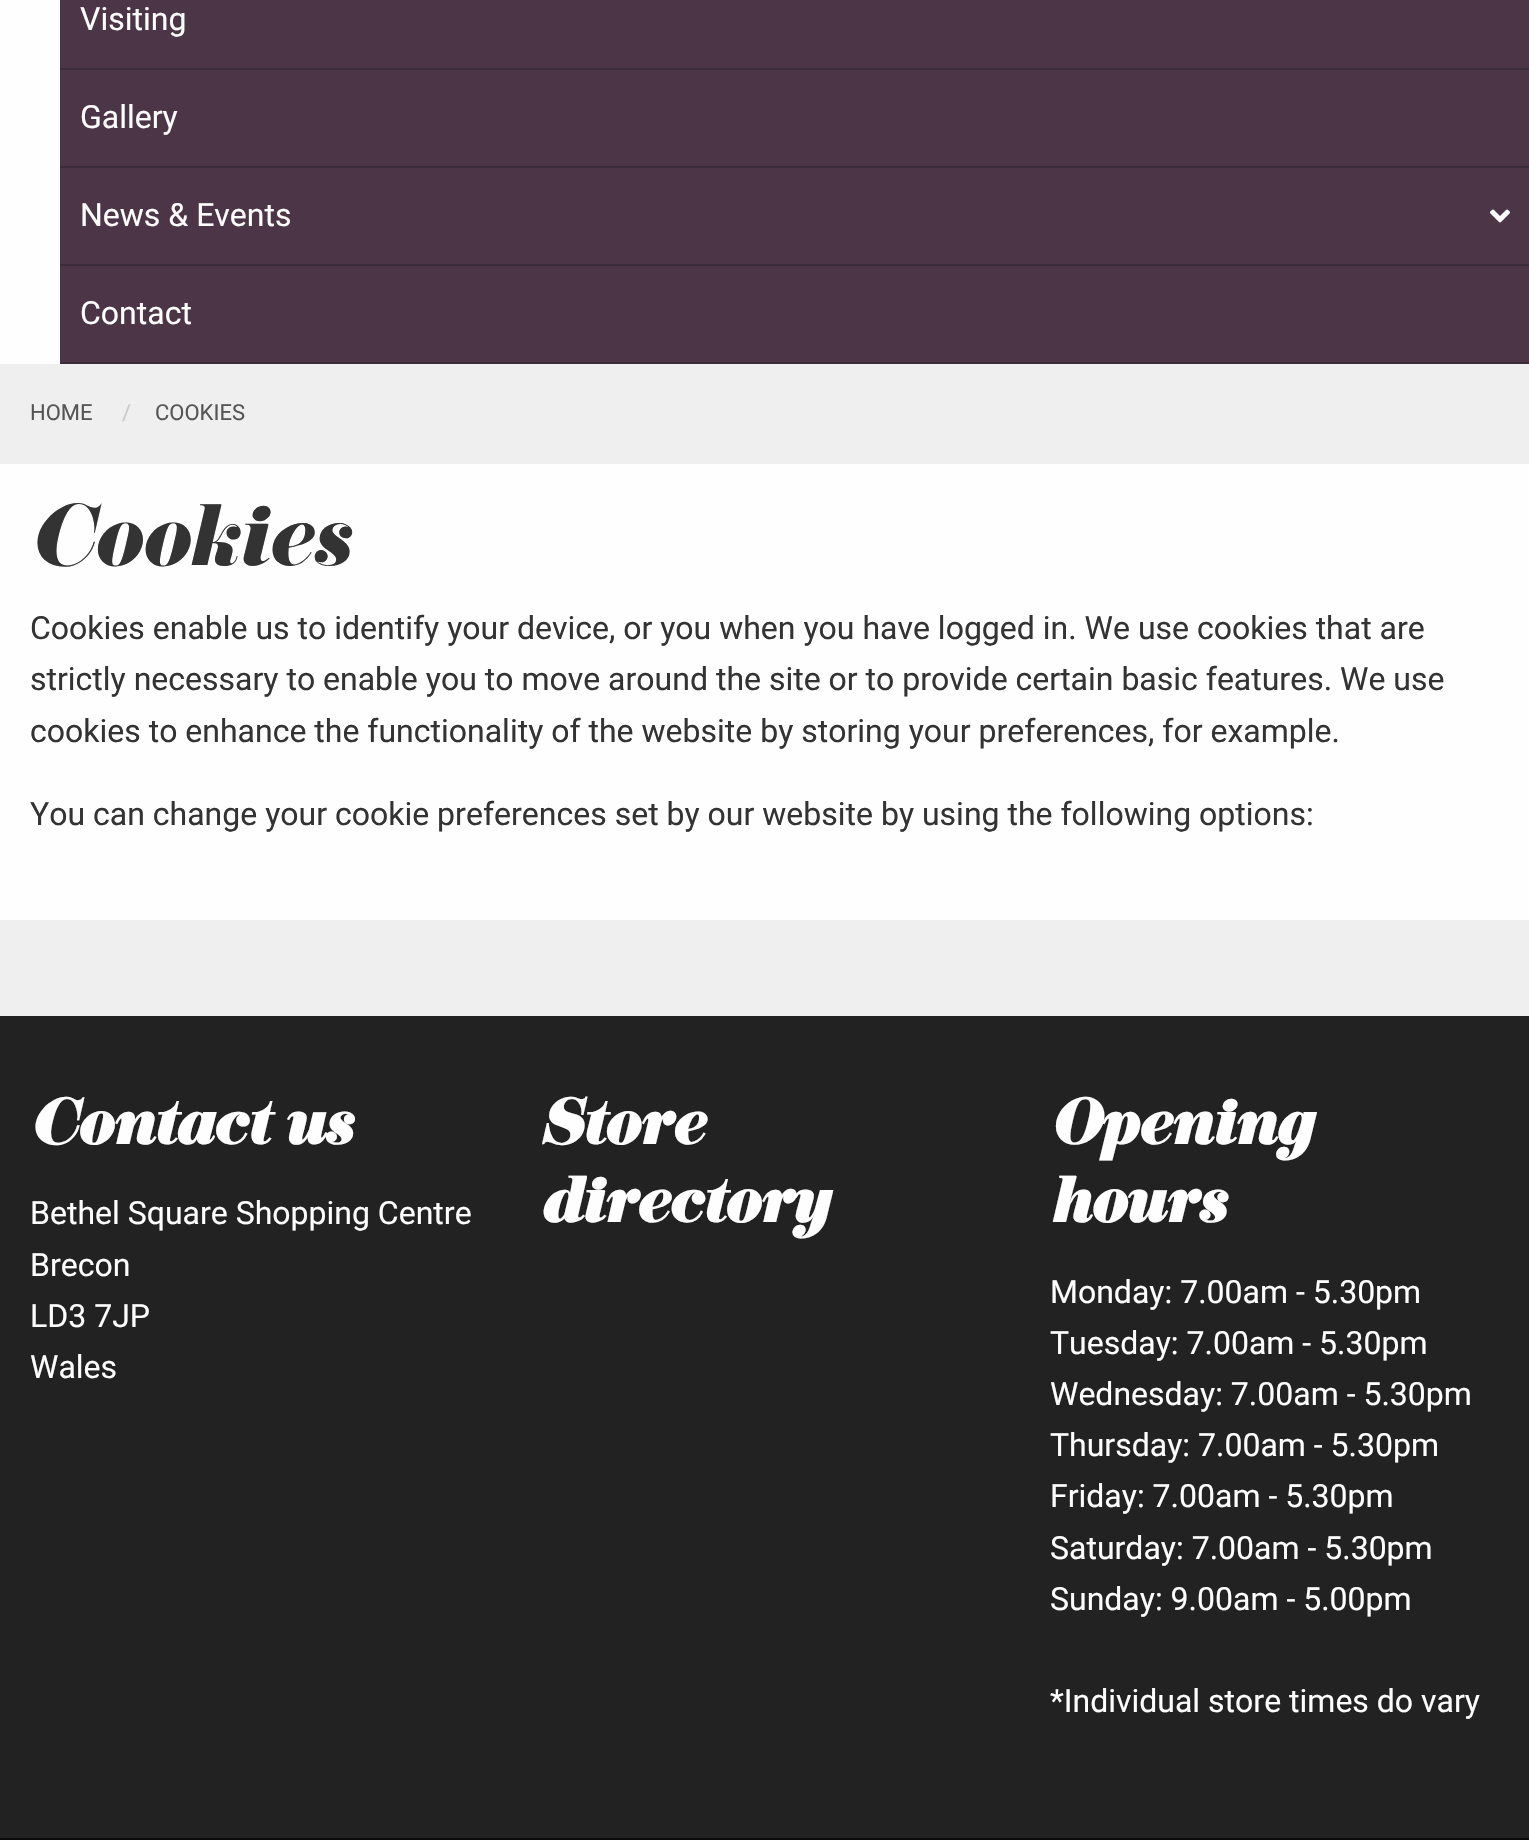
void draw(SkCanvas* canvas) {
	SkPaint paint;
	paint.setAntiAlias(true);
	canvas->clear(0xff0a0a0a);
	paint.setColor(0xfffefefe);
	canvas->drawRect(SkRect::MakeXYWH(0, 0, 60, 364), paint);
	paint.setColor(0xff4b3546);
	canvas->drawRect(SkRect::MakeXYWH(60, 0, 1469, 68), paint);
	paint.setColor(0xff3c2b38);
	canvas->drawRect(SkRect::MakeXYWH(60, 68, 1469, 2), paint);
	SkFont f1(fontMgr->matchFamilyStyle("Roboto", SkFontStyle::Normal()), 32);
	f1.setSubpixel(true);
	paint.setColor(0xfffefefe);
	canvas->drawString("Visiting", 80, 30, f1, paint);
	paint.setColor(0xff4b3546);
	canvas->drawRect(SkRect::MakeXYWH(60, 70, 1469, 96), paint);
	paint.setColor(0xff3c2b38);
	canvas->drawRect(SkRect::MakeXYWH(60, 166, 1469, 2), paint);
	paint.setColor(0xfffefefe);
	canvas->drawString("Gallery", 80, 128, f1, paint);
	paint.setColor(0xff4b3546);
	canvas->drawRect(SkRect::MakeXYWH(60, 168, 1469, 96), paint);
	paint.setColor(0xff3c2b38);
	canvas->drawRect(SkRect::MakeXYWH(60, 264, 1469, 2), paint);
	paint.setColor(0xfffefefe);
	canvas->drawString("News & Events", 80, 226, f1, paint);
	canvas->drawImageRect(SkImages::DeferredFromEncodedData(SkData::MakeFromFileName("img1.png")), SkRect::MakeXYWH(1490, 209, 20, 14), SkSamplingOptions());
	paint.setColor(0xff4b3546);
	canvas->drawRect(SkRect::MakeXYWH(60, 266, 1469, 96), paint);
	paint.setColor(0xff3c2b38);
	canvas->drawRect(SkRect::MakeXYWH(60, 362, 1469, 2), paint);
	paint.setColor(0xfffefefe);
	canvas->drawString("Contact", 80, 324, f1, paint);
	paint.setColor(0xffefefef);
	canvas->drawRect(SkRect::MakeXYWH(0, 364, 1529, 100), paint);
	SkFont f2(fontMgr->matchFamilyStyle("Roboto", SkFontStyle::Normal()), 22);
	f2.setSubpixel(true);
	paint.setColor(0xff555555);
	canvas->drawString("HOME", 30, 420, f2, paint);
	paint.setColor(0xffcacaca);
	canvas->drawString("/", 122, 420, f2, paint);
	paint.setColor(0xff555555);
	canvas->drawString("COOKIES", 155, 420, f2, paint);
	paint.setColor(0xfffefefe);
	canvas->drawRect(SkRect::MakeXYWH(0, 464, 1529, 456), paint);
	SkFont f3(fontMgr->matchFamilyStyle("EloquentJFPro", SkFontStyle::Italic()), 76);
	f3.setSubpixel(true);
	paint.setColor(0xff333333);
	canvas->drawString("Cookies", 30, 565, f3, paint);
	canvas->drawString("Cookies enable us to identify your device, or you when you have logged in. We use cookies that are", 30, 639, f1, paint);
	canvas->drawString("strictly necessary to enable you to move around the site or to provide certain basic features. We use", 30, 690, f1, paint);
	canvas->drawString("cookies to enhance the functionality of the website by storing your preferences, for example.", 30, 742, f1, paint);
	canvas->drawString("You can change your cookie preferences set by our website by using the following options:", 30, 825, f1, paint);
	paint.setColor(0xffefefef);
	canvas->drawRect(SkRect::MakeXYWH(0, 920, 1529, 96), paint);
	paint.setColor(0xff222222);
	canvas->drawRect(SkRect::MakeXYWH(0, 1016, 1529, 822), paint);
	SkFont f4(fontMgr->matchFamilyStyle("EloquentJFPro", SkFontStyle::BoldItalic()), 56);
	f4.setSubpixel(true);
	paint.setColor(0xfffefefe);
	canvas->drawString("Contact us", 30, 1144, f4, paint);
	canvas->drawString("Bethel Square Shopping Centre", 30, 1224, f1, paint);
	canvas->drawString("Brecon", 30, 1276, f1, paint);
	canvas->drawString("LD3 7JP", 30, 1327, f1, paint);
	canvas->drawString("Wales", 30, 1378, f1, paint);
	canvas->drawString("Store", 540, 1144, f4, paint);
	canvas->drawString("directory", 540, 1222, f4, paint);
	canvas->drawString("Opening", 1050, 1144, f4, paint);
	canvas->drawString("hours", 1050, 1222, f4, paint);
	canvas->drawString("Monday: 7.00am - 5.30pm", 1050, 1303, f1, paint);
	canvas->drawString("Tuesday: 7.00am - 5.30pm", 1050, 1354, f1, paint);
	canvas->drawString("Wednesday: 7.00am - 5.30pm", 1050, 1405, f1, paint);
	canvas->drawString("Thursday: 7.00am - 5.30pm", 1050, 1456, f1, paint);
	canvas->drawString("Friday: 7.00am - 5.30pm", 1050, 1507, f1, paint);
	canvas->drawString("Saturday: 7.00am - 5.30pm", 1050, 1559, f1, paint);
	canvas->drawString("Sunday: 9.00am - 5.00pm", 1050, 1610, f1, paint);
	canvas->drawString("*Individual store times do vary", 1050, 1712, f1, paint);
}
